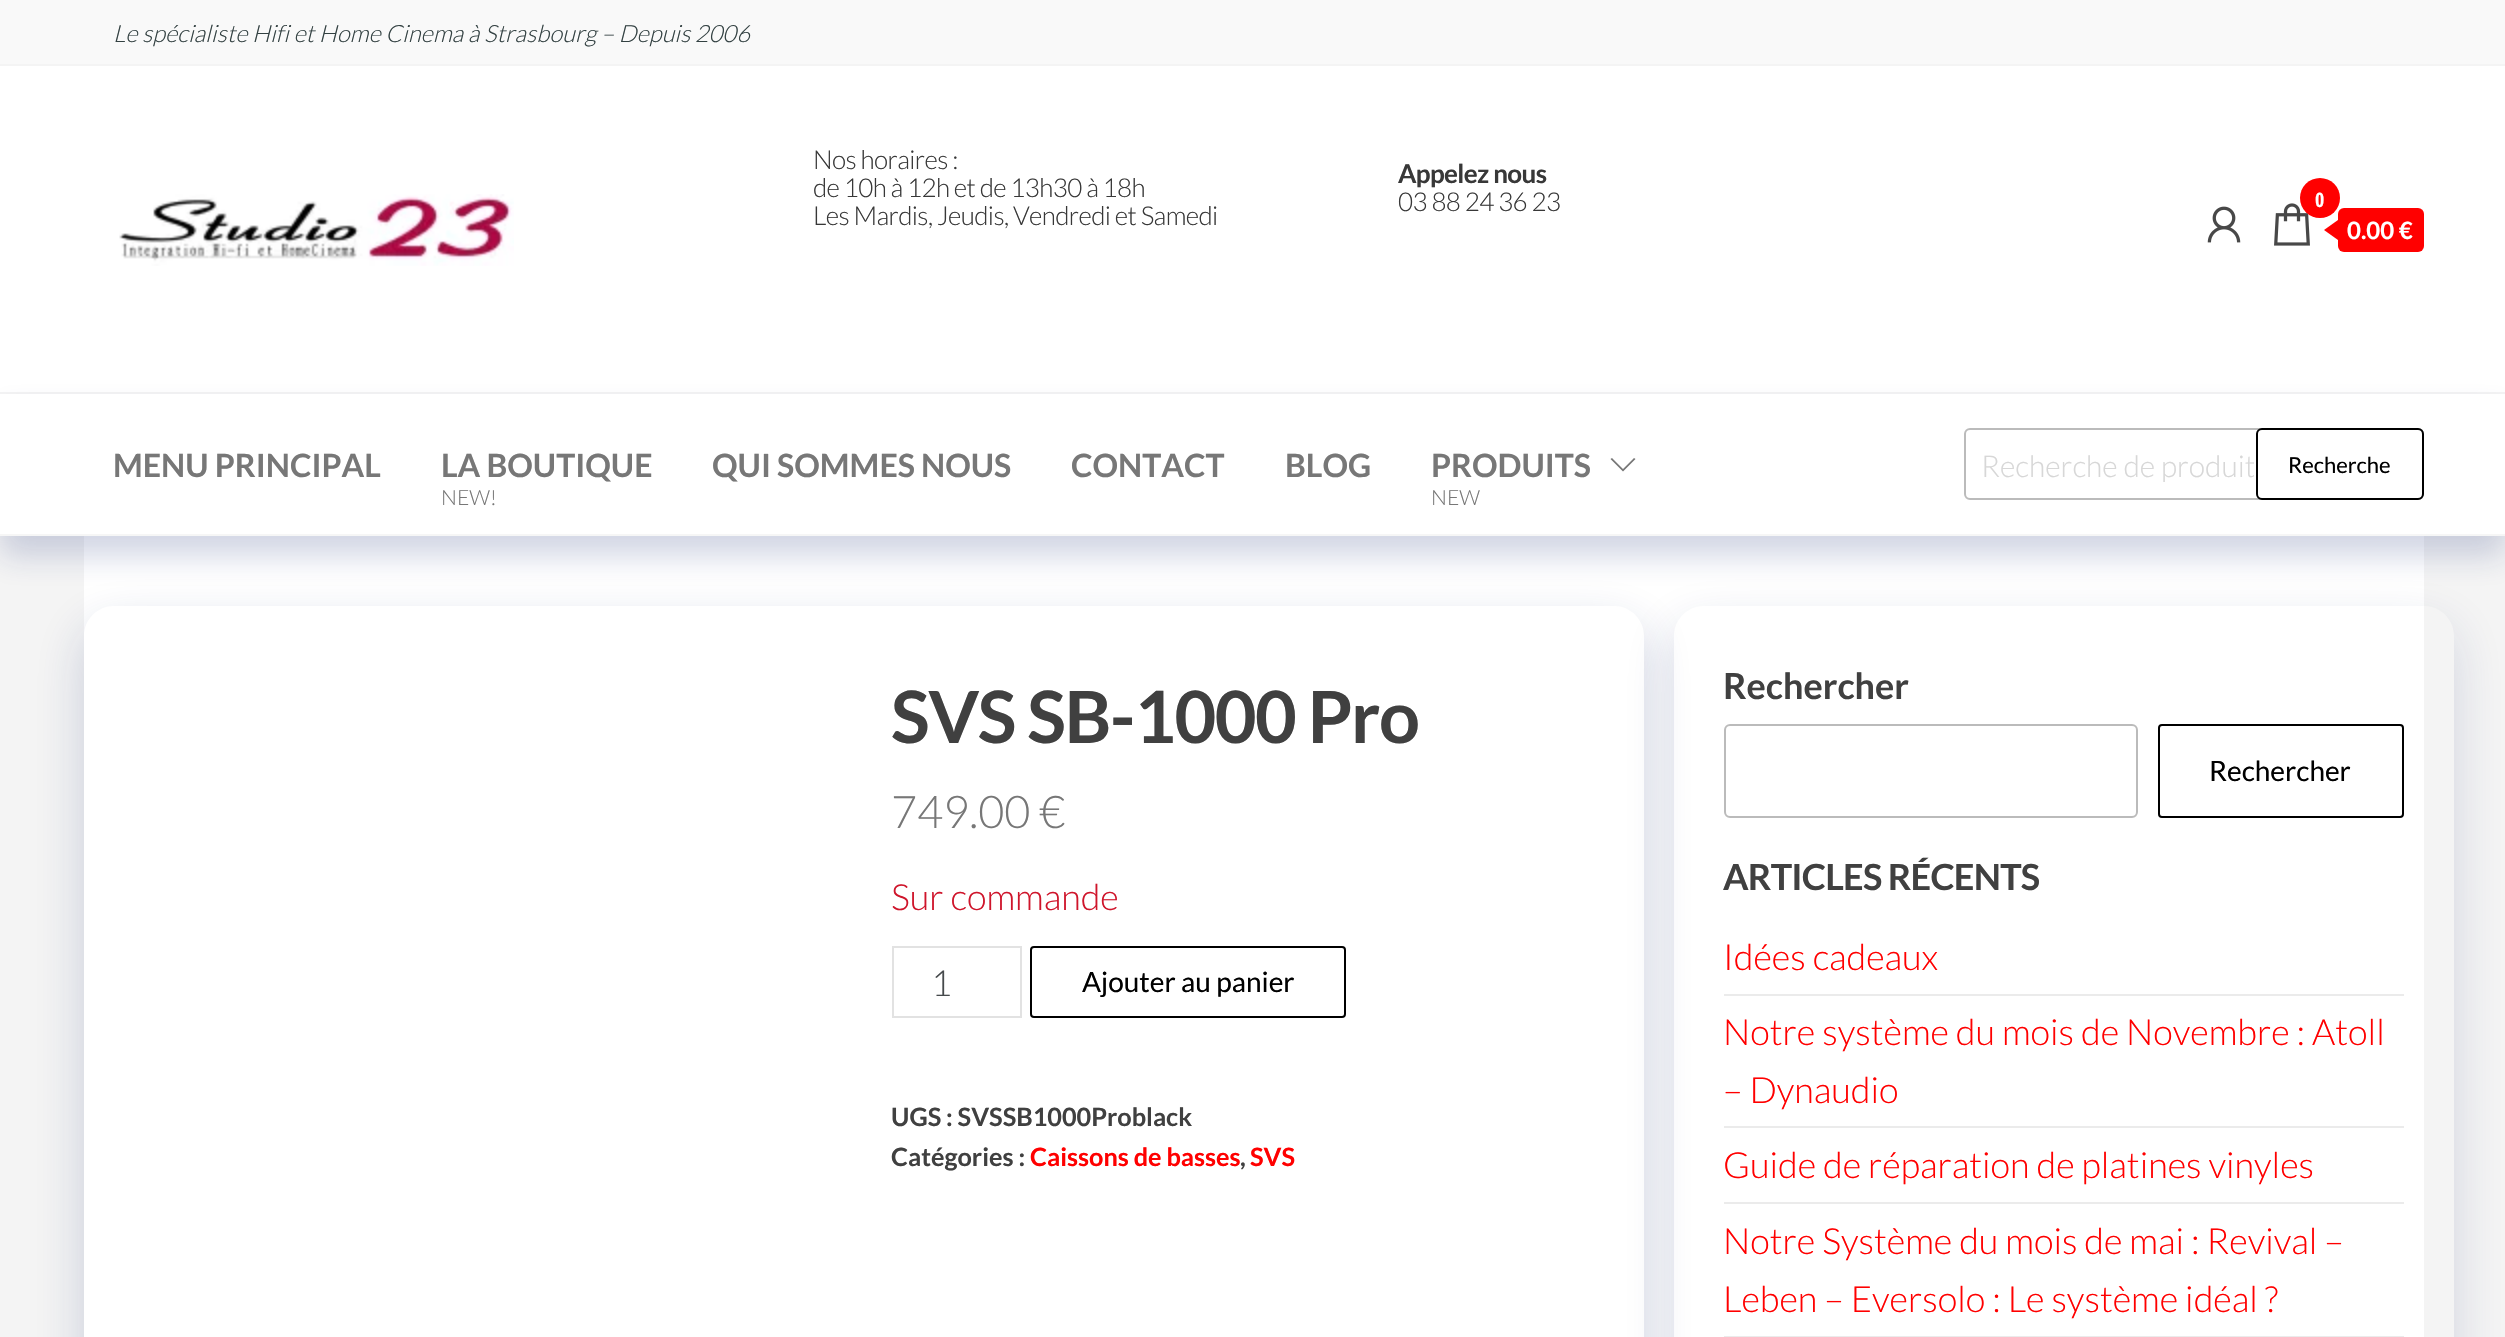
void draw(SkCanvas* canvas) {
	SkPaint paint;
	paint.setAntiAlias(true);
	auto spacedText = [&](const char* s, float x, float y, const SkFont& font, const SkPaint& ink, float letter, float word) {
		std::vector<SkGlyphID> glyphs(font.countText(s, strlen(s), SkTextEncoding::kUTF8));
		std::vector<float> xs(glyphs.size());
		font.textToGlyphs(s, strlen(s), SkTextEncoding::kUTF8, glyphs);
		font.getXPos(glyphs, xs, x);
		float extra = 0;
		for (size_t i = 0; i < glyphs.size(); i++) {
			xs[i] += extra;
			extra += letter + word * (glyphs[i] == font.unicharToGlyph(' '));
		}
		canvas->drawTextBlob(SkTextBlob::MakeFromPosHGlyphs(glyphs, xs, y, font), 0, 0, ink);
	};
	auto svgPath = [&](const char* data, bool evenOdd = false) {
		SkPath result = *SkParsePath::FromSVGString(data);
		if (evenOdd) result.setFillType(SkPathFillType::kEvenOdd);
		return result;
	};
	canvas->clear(0xfff4f4f4);
	paint.setColor(0xfff9f9f9);
	canvas->drawRect(SkRect::MakeXYWH(0, 0, 2505, 64), paint);
	SkFont f1(fontMgr->matchFamilyStyle("Lato", SkFontStyle(300, SkFontStyle::kNormal_Width, SkFontStyle::kItalic_Slant)), 23.8);
	f1.setSubpixel(true);
	paint.setColor(0xff334142);
	canvas->drawString("Le spécialiste Hifi et Home Cinema à Strasbourg – Depuis 2006", 113, 42, f1, paint);
	paint.setColor(0xffffffff);
	canvas->drawRect(SkRect::MakeXYWH(0, 66, 2505, 326), paint);
	canvas->drawImageRect(SkImages::DeferredFromEncodedData(SkData::MakeFromFileName("img1.png")), SkRect::MakeXYWH(119, 194, 395, 72), SkSamplingOptions());
	SkFont f2(fontMgr->matchFamilyStyle("Lato", SkFontStyle(300, SkFontStyle::kNormal_Width, SkFontStyle::kUpright_Slant)), 26);
	f2.setSubpixel(true);
	paint.setColor(0xff383838);
	spacedText("Nos horaires :", 813, 169, f2, paint, -0.6, 0);
	spacedText("de 10h à 12h et de 13h30 à 18h", 813, 197, f2, paint, -0.6, 0);
	spacedText("Les Mardis, Jeudis, Vendredi et Samedi", 813, 225, f2, paint, -0.6, 0);
	SkFont f3(fontMgr->matchFamilyStyle("Lato", SkFontStyle::Bold()), 26);
	f3.setSubpixel(true);
	spacedText("Appelez nous", 1398, 183, f3, paint, -0.6, 0);
	spacedText("03 88 24 36 23", 1398, 211, f2, paint, -0.6, 0);
	canvas->drawImageRect(SkImages::DeferredFromEncodedData(SkData::MakeFromFileName("img2.png")), SkRect::MakeXYWH(2207, 206, 34, 37), SkSamplingOptions());
	canvas->drawImageRect(SkImages::DeferredFromEncodedData(SkData::MakeFromFileName("img3.png")), SkRect::MakeXYWH(2274, 203, 36, 43), SkSamplingOptions());
	paint.setColor(0xffff0000);
	canvas->drawCircle(2320, 198, 20, paint);
	SkFont f4(fontMgr->matchFamilyStyle("Open Sans Condensed", SkFontStyle::Bold()), 20);
	f4.setSubpixel(true);
	paint.setColor(0xffffffff);
	canvas->drawString("0", 2315, 207, f4, paint);
	paint.setColor(0xffff0000);
	canvas->drawRoundRect(SkRect::MakeXYWH(2338, 208, 86, 44), 6, 6, paint);
	canvas->drawPath(svgPath("M2338 220V240L2324 230Z"), paint);
	SkFont f5(fontMgr->matchFamilyStyle("Lato", SkFontStyle::Bold()), 24);
	f5.setSubpixel(true);
	paint.setColor(0xffffffff);
	canvas->drawString("0.00 €", 2347, 239, f5, paint);
	canvas->drawRect(SkRect::MakeXYWH(84, 536, 2340, 801), paint);
	paint.setColor(0x33192d78);
	paint.setMaskFilter(SkMaskFilter::MakeBlur(kNormal_SkBlurStyle, 15));
	canvas->drawRect(SkRect::MakeXYWH(0, 414, 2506, 142), paint);
	paint.setMaskFilter(nullptr);
	paint.setColor(0xffffffff);
	canvas->drawRect(SkRect::MakeXYWH(0, 394, 2505, 140), paint);
	paint.setColor(0xfff6f6f6);
	canvas->drawRect(SkRect::MakeXYWH(0, 534, 2505, 2), paint);
	SkFont f6(fontMgr->matchFamilyStyle("Lato", SkFontStyle::Bold()), 32);
	f6.setSubpixel(true);
	paint.setColor(0xff777777);
	canvas->drawString("MENU PRINCIPAL", 113, 477, f6, paint);
	canvas->drawString("LA BOUTIQUE", 441, 477, f6, paint);
	SkFont f7(fontMgr->matchFamilyStyle("Lato", SkFontStyle(300, SkFontStyle::kNormal_Width, SkFontStyle::kUpright_Slant)), 21);
	f7.setSubpixel(true);
	canvas->drawString("NEW!", 441, 505, f7, paint);
	canvas->drawString("QUI SOMMES NOUS", 712, 477, f6, paint);
	canvas->drawString("CONTACT", 1071, 477, f6, paint);
	canvas->drawString("BLOG", 1285, 477, f6, paint);
	canvas->drawString("PRODUITS", 1431, 477, f6, paint);
	canvas->drawPath(svgPath("M1612 458L1610.5 459L1623 471.5L1635.5 459L1634 458L1623 469Z"), paint);
	canvas->drawString("NEW", 1431, 505, f7, paint);
	paint.setStroke(true);
	paint.setStrokeWidth(2);
	paint.setColor(0xffbbbbbb);
	canvas->drawRoundRect(SkRect::MakeXYWH(1965, 429, 458, 70), 5, 5, paint);
	canvas->save();
	canvas->clipRect(SkRect::MakeXYWH(1982, 446, 272, 36));
	SkFont f8(fontMgr->matchFamilyStyle("Lato", SkFontStyle(300, SkFontStyle::kNormal_Width, SkFontStyle::kUpright_Slant)), 30);
	f8.setSubpixel(true);
	paint.setStroke(false);
	paint.setColor(0xffd7d7d7);
	canvas->drawString("Recherche de produit", 1981, 477, f8, paint);
	canvas->restore();
	paint.setStroke(true);
	paint.setColor(0xff000000);
	canvas->drawRoundRect(SkRect::MakeXYWH(2257, 429, 166, 70), 5, 5, paint);
	SkFont f9(fontMgr->matchFamilyStyle("Lato", SkFontStyle::Normal()), 22);
	f9.setSubpixel(true);
	paint.setStroke(false);
	canvas->drawString("Recherche", 2288, 473, f9, paint);
	canvas->save();
	canvas->clipPath(svgPath("M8 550H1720V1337H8ZM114 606H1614C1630.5 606 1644 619.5 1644 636V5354C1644 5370.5 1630.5 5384 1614 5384H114C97.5 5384 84 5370.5 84 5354V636C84 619.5 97.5 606 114 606Z", true), true);
	paint.setColor(0x33192d6e);
	paint.setMaskFilter(SkMaskFilter::MakeBlur(kNormal_SkBlurStyle, 25));
	canvas->drawRoundRect(SkRect::MakeXYWH(84, 626, 1560, 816), 30, 30, paint);
	paint.setMaskFilter(nullptr);
	canvas->restore();
	SkFont f10(fontMgr->matchFamilyStyle("Lato", SkFontStyle::Bold()), 72);
	f10.setSubpixel(true);
	paint.setColor(0xff404040);
	spacedText("SVS SB-1000 Pro", 891, 743, f10, paint, -1.5, 0);
	SkFont f11(fontMgr->matchFamilyStyle("Lato", SkFontStyle(300, SkFontStyle::kNormal_Width, SkFontStyle::kUpright_Slant)), 45);
	f11.setSubpixel(true);
	paint.setColor(0xff777777);
	canvas->drawString("749.00 €", 891, 828, f11, paint);
	SkFont f12(fontMgr->matchFamilyStyle("Lato", SkFontStyle(300, SkFontStyle::kNormal_Width, SkFontStyle::kUpright_Slant)), 36);
	f12.setSubpixel(true);
	paint.setColor(0xffcf152b);
	canvas->drawString("Sur commande", 891, 910, f12, paint);
	paint.setStroke(true);
	paint.setColor(0xffe2e2e2);
	canvas->drawRect(SkRect::MakeXYWH(893, 947, 128, 70), paint);
	paint.setStroke(false);
	paint.setColor(0xff464a4c);
	canvas->drawString("1", 931, 996, f12, paint);
	paint.setStroke(true);
	paint.setColor(0xff000000);
	canvas->drawRoundRect(SkRect::MakeXYWH(1031, 947, 314, 70), 3, 3, paint);
	SkFont f13(fontMgr->matchFamilyStyle("Lato", SkFontStyle::Normal()), 28);
	f13.setSubpixel(true);
	paint.setStroke(false);
	canvas->drawString("Ajouter au panier", 1082, 992, f13, paint);
	SkFont f14(fontMgr->matchFamilyStyle("Lato", SkFontStyle::Bold()), 25.25);
	f14.setSubpixel(true);
	paint.setColor(0xff404040);
	canvas->drawString("UGS : SVSSB1000Problack", 891, 1126, f14, paint);
	canvas->drawString("Catégories :", 891, 1166, f14, paint);
	paint.setColor(0xffff0000);
	canvas->drawString("Caissons de basses", 1030, 1166, f14, paint);
	paint.setColor(0xff404040);
	canvas->drawString(",", 1240, 1166, f14, paint);
	paint.setColor(0xffff0000);
	canvas->drawString("SVS", 1250, 1166, f14, paint);
	canvas->save();
	canvas->clipPath(svgPath("M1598 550H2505V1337H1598ZM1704 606H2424C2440.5 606 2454 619.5 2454 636V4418C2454 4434.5 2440.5 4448 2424 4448H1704C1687.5 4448 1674 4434.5 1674 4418V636C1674 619.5 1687.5 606 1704 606Z", true), true);
	paint.setColor(0x2b1c2d71);
	paint.setMaskFilter(SkMaskFilter::MakeBlur(kNormal_SkBlurStyle, 25));
	canvas->drawRoundRect(SkRect::MakeXYWH(1674, 626, 780, 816), 30, 30, paint);
	paint.setMaskFilter(nullptr);
	canvas->restore();
	SkFont f15(fontMgr->matchFamilyStyle("Lato", SkFontStyle::Bold()), 36);
	f15.setSubpixel(true);
	paint.setColor(0xff404040);
	canvas->drawString("Rechercher", 1723, 699, f15, paint);
	paint.setStroke(true);
	paint.setColor(0xffbbbbbb);
	canvas->drawRoundRect(SkRect::MakeXYWH(1725, 725, 412, 92), 5, 5, paint);
	paint.setColor(0xff000000);
	canvas->drawRoundRect(SkRect::MakeXYWH(2159, 725, 244, 92), 3, 3, paint);
	paint.setStroke(false);
	canvas->drawString("Rechercher", 2209, 781, f13, paint);
	paint.setColor(0xff404040);
	spacedText("ARTICLES RÉCENTS", 1723, 890, f15, paint, -0.75, 0);
	paint.setColor(0xffebebeb);
	canvas->drawRect(SkRect::MakeXYWH(1724, 994, 680, 2), paint);
	paint.setColor(0xffff0000);
	canvas->drawString("Idées cadeaux", 1723, 970, f12, paint);
	paint.setColor(0xffebebeb);
	canvas->drawRect(SkRect::MakeXYWH(1724, 1126, 680, 2), paint);
	paint.setColor(0xffff0000);
	canvas->drawString("Notre système du mois de Novembre : Atoll", 1723, 1045, f12, paint);
	canvas->drawString("– Dynaudio", 1723, 1103, f12, paint);
	paint.setColor(0xffebebeb);
	canvas->drawRect(SkRect::MakeXYWH(1724, 1202, 680, 2), paint);
	paint.setColor(0xffff0000);
	canvas->drawString("Guide de réparation de platines vinyles", 1723, 1178, f12, paint);
	paint.setColor(0xffebebeb);
	canvas->drawRect(SkRect::MakeXYWH(1724, 1336, 680, 1), paint);
	paint.setColor(0xffff0000);
	canvas->drawString("Notre Système du mois de mai : Revival –", 1723, 1254, f12, paint);
	canvas->drawString("Leben – Eversolo : Le système idéal ?", 1723, 1312, f12, paint);
}
